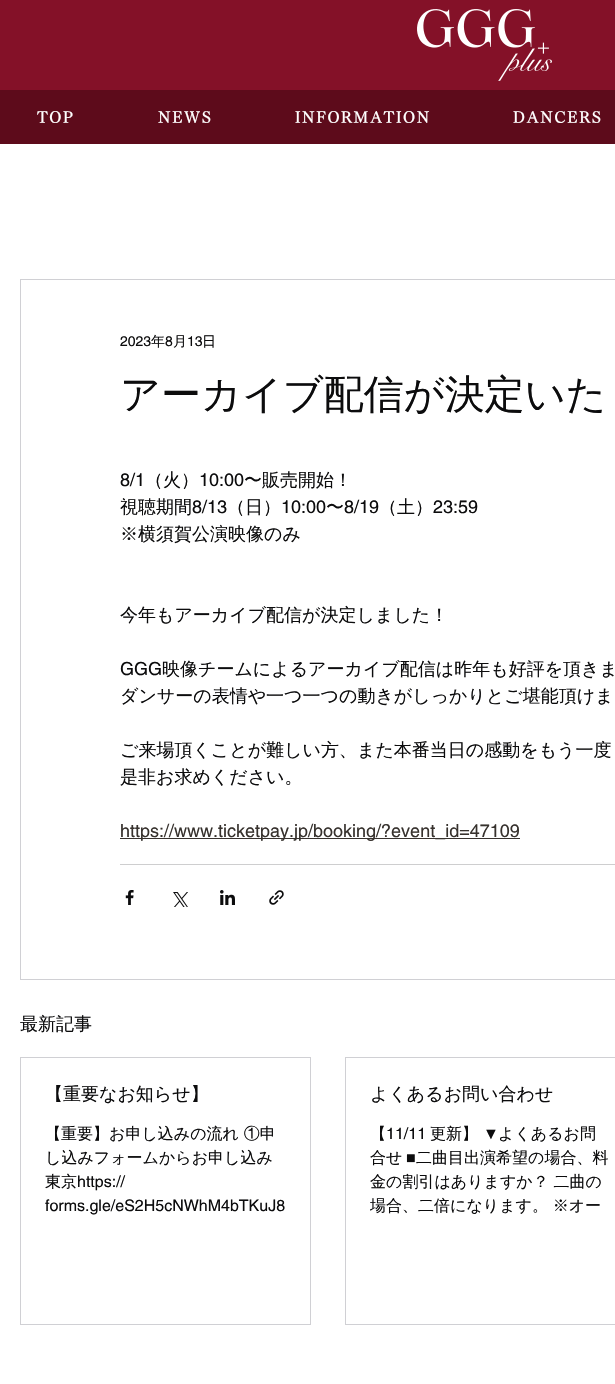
void draw(SkCanvas* canvas) {
	SkPaint paint;
	paint.setAntiAlias(true);
	auto spacedText = [&](const char* s, float x, float y, const SkFont& font, const SkPaint& ink, float letter, float word) {
		std::vector<SkGlyphID> glyphs(font.countText(s, strlen(s), SkTextEncoding::kUTF8));
		std::vector<float> xs(glyphs.size());
		font.textToGlyphs(s, strlen(s), SkTextEncoding::kUTF8, glyphs);
		font.getXPos(glyphs, xs, x);
		float extra = 0;
		for (size_t i = 0; i < glyphs.size(); i++) {
			xs[i] += extra;
			extra += letter + word * (glyphs[i] == font.unicharToGlyph(' '));
		}
		canvas->drawTextBlob(SkTextBlob::MakeFromPosHGlyphs(glyphs, xs, y, font), 0, 0, ink);
	};
	canvas->clear(0xffffffff);
	paint.setColor(0xff841128);
	canvas->drawRect(SkRect::MakeXYWH(0, 0, 615, 90), paint);
	canvas->drawImageRect(SkImages::DeferredFromEncodedData(SkData::MakeFromFileName("img1.png")), SkRect::MakeXYWH(417, 9, 135, 72), SkSamplingOptions());
	paint.setColor(0xff5d0b1b);
	canvas->drawRect(SkRect::MakeXYWH(0, 90, 615, 54), paint);
	SkFont f1(fontMgr->matchFamilyStyle("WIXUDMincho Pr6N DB", SkFontStyle(600, SkFontStyle::kNormal_Width, SkFontStyle::kUpright_Slant)), 15);
	f1.setSubpixel(true);
	paint.setColor(0xffffffff);
	spacedText("TOP", 37, 123, f1, paint, 1.5, 0);
	spacedText("NEWS", 158, 123, f1, paint, 1.5, 0);
	spacedText("INFORMATION", 295, 123, f1, paint, 1.5, 0);
	spacedText("DANCERS", 513, 123, f1, paint, 1.5, 0);
	paint.setStroke(true);
	paint.setStrokeWidth(1);
	paint.setColor(0xffd0d0d4);
	canvas->drawRect(SkRect::MakeXYWH(20.5, 279.5, 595, 700), paint);
	SkFont f2(fontMgr->matchFamilyStyle("helvetica", SkFontStyle::Normal()), 14);
	f2.setSubpixel(true);
	paint.setStroke(false);
	paint.setColor(0xff0c0c0d);
	canvas->drawString("2023", 120, 346, f2, paint);
	SkFont f3(fontMgr->matchFamilyStyle("WenQuanYi Zen Hei", SkFontStyle(500, SkFontStyle::kNormal_Width, SkFontStyle::kUpright_Slant)), 14);
	f3.setSubpixel(true);
	canvas->drawString("年", 151, 346, f3, paint);
	canvas->drawString("8", 165, 346, f2, paint);
	canvas->drawString("月", 173, 346, f3, paint);
	canvas->drawString("13", 187, 346, f2, paint);
	canvas->drawString("日", 202, 346, f3, paint);
	SkFont f4(fontMgr->matchFamilyStyle("WenQuanYi Zen Hei", SkFontStyle(500, SkFontStyle::kNormal_Width, SkFontStyle::kUpright_Slant)), 40);
	f4.setSubpixel(true);
	canvas->drawString("アーカイブ配信が決定いた", 120, 408, f4, paint);
	SkFont f5(fontMgr->matchFamilyStyle("helvetica", SkFontStyle::Normal()), 18);
	f5.setSubpixel(true);
	canvas->drawString("8/1", 120, 486, f5, paint);
	SkFont f6(fontMgr->matchFamilyStyle("WenQuanYi Zen Hei", SkFontStyle(500, SkFontStyle::kNormal_Width, SkFontStyle::kUpright_Slant)), 18);
	f6.setSubpixel(true);
	canvas->drawString("（火）", 145, 486, f6, paint);
	canvas->drawString("10:00", 199, 486, f5, paint);
	canvas->drawString("〜販売開始！", 244, 486, f6, paint);
	canvas->drawString("視聴期間", 120, 513, f6, paint);
	canvas->drawString("8/13", 192, 513, f5, paint);
	canvas->drawString("（日）", 227, 513, f6, paint);
	canvas->drawString("10:00", 281, 513, f5, paint);
	canvas->drawString("〜", 326, 513, f6, paint);
	canvas->drawString("8/19", 344, 513, f5, paint);
	canvas->drawString("（土）", 379, 513, f6, paint);
	canvas->drawString("23:59", 433, 513, f5, paint);
	canvas->drawString("※横須賀公演映像のみ", 120, 540, f6, paint);
	canvas->drawString("今年もアーカイブ配信が決定しました！", 120, 621, f6, paint);
	canvas->drawString("GGG", 120, 675, f5, paint);
	canvas->drawString("映像チームによるアーカイブ配信は昨年も好評を頂きま", 162, 675, f6, paint);
	canvas->drawString("ダンサーの表情や一つ一つの動きがしっかりとご堪能頂けま", 120, 702, f6, paint);
	canvas->drawString("ご来場頂くことが難しい方、また本番当日の感動をもう一度", 120, 756, f6, paint);
	canvas->drawString("是非お求めください。", 120, 783, f6, paint);
	paint.setColor(0xff37322e);
	canvas->drawRect(SkRect::MakeXYWH(120, 838, 400, 1), paint);
	canvas->drawString("https://www.ticketpay.jp/booking/?event_id=47109", 120, 837, f5, paint);
	paint.setColor(0xffcececf);
	canvas->drawRect(SkRect::MakeXYWH(120, 864, 495, 1), paint);
	canvas->drawImageRect(SkImages::DeferredFromEncodedData(SkData::MakeFromFileName("img2.png")), SkRect::MakeXYWH(125, 890, 9, 15), SkSamplingOptions());
	canvas->drawImageRect(SkImages::DeferredFromEncodedData(SkData::MakeFromFileName("img3.png")), SkRect::MakeXYWH(173, 892, 15, 15), SkSamplingOptions());
	canvas->drawImageRect(SkImages::DeferredFromEncodedData(SkData::MakeFromFileName("img4.png")), SkRect::MakeXYWH(220, 890, 15, 15), SkSamplingOptions());
	canvas->drawImageRect(SkImages::DeferredFromEncodedData(SkData::MakeFromFileName("img5.png")), SkRect::MakeXYWH(269, 890, 15, 15), SkSamplingOptions());
	paint.setColor(0xff0c0c0d);
	canvas->drawString("最新記事", 20, 1030, f6, paint);
	paint.setStroke(true);
	paint.setColor(0xffd0d0d4);
	canvas->drawRect(SkRect::MakeXYWH(20.5, 1057.5, 290, 267), paint);
	paint.setStroke(false);
	paint.setColor(0xff0c0c0d);
	canvas->drawString("【重要なお知らせ】", 45, 1100, f6, paint);
	SkFont f7(fontMgr->matchFamilyStyle("WenQuanYi Zen Hei", SkFontStyle(500, SkFontStyle::kNormal_Width, SkFontStyle::kUpright_Slant)), 16);
	f7.setSubpixel(true);
	canvas->drawString("【重要】お申し込みの流れ ①申", 45, 1139, f7, paint);
	canvas->drawString("し込みフォームからお申し込み", 45, 1163, f7, paint);
	canvas->drawString("東京", 45, 1187, f7, paint);
	SkFont f8(fontMgr->matchFamilyStyle("helvetica", SkFontStyle::Normal()), 16);
	f8.setSubpixel(true);
	canvas->drawString("https://", 77, 1187, f8, paint);
	canvas->drawString("forms.gle/eS2H5cNWhM4bTKuJ8", 45, 1211, f8, paint);
	paint.setStroke(true);
	paint.setColor(0xffd0d0d4);
	canvas->drawRect(SkRect::MakeXYWH(345.5, 1057.5, 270, 267), paint);
	paint.setStroke(false);
	paint.setColor(0xff0c0c0d);
	canvas->drawString("よくあるお問い合わせ", 370, 1100, f6, paint);
	canvas->drawString("【", 370, 1139, f7, paint);
	canvas->drawString("11/11", 386, 1139, f8, paint);
	canvas->drawString("更新】", 430, 1139, f7, paint);
	SkFont f9(fontMgr->matchFamilyStyle("Liberation Sans", SkFontStyle::Normal()), 16);
	f9.setSubpixel(true);
	canvas->drawString("▼", 483, 1139, f9, paint);
	canvas->drawString("よくあるお問", 498, 1139, f7, paint);
	canvas->drawString("合せ", 370, 1163, f7, paint);
	canvas->drawString("■", 406, 1163, f9, paint);
	canvas->drawString("二曲目出演希望の場合、料", 416, 1163, f7, paint);
	canvas->drawString("金の割引はありますか？ 二曲の", 370, 1187, f7, paint);
	canvas->drawString("場合、二倍になります。 ※オー", 370, 1211, f7, paint);
}
